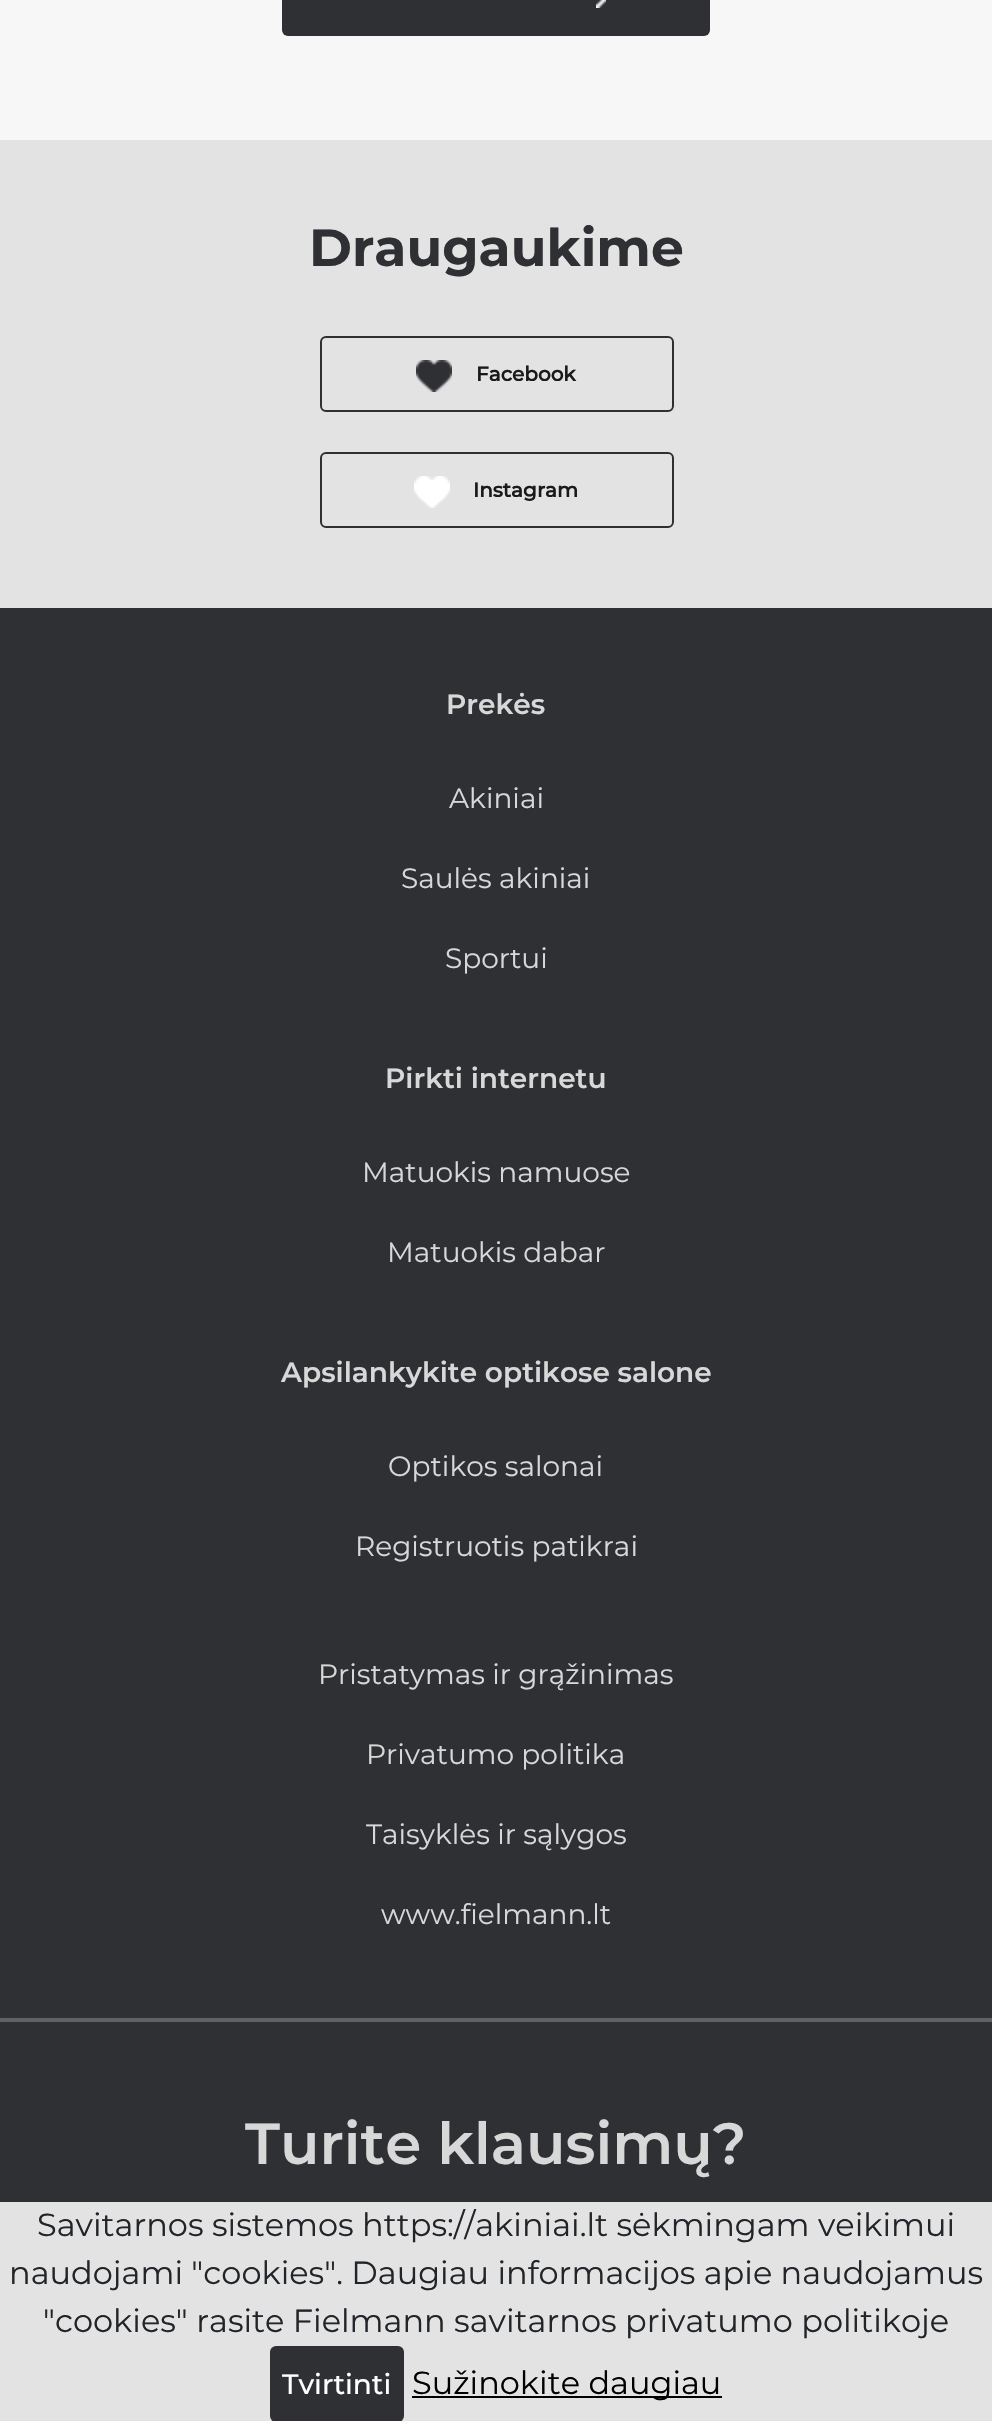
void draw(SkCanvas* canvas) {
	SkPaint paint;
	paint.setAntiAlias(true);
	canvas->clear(0xffe4e3e3);
	paint.setColor(0xfff7f7f7);
	canvas->drawRect(SkRect::MakeXYWH(0, 0, 992, 140), paint);
	paint.setColor(0xff2f3034);
	canvas->drawRoundRect(SkRect::MakeXYWH(282, -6, 428, 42), 6, 6, paint);
	canvas->drawImageRect(SkImages::DeferredFromEncodedData(SkData::MakeFromFileName("img1.png")), SkRect::MakeXYWH(596, 0, 10, 8), SkSamplingOptions());
	SkFont f1(fontMgr->matchFamilyStyle("Montserrat", SkFontStyle::Bold()), 52);
	f1.setSubpixel(true);
	canvas->drawString("Draugaukime", 309, 266, f1, paint);
	paint.setStroke(true);
	paint.setStrokeWidth(2);
	canvas->drawRoundRect(SkRect::MakeXYWH(321, 337, 352, 74), 5, 5, paint);
	canvas->drawImageRect(SkImages::DeferredFromEncodedData(SkData::MakeFromFileName("img2.png")), SkRect::MakeXYWH(416, 360, 36, 32), SkSamplingOptions());
	SkFont f2(fontMgr->matchFamilyStyle("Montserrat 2", SkFontStyle::Bold()), 20);
	f2.setSubpixel(true);
	paint.setStroke(false);
	paint.setColor(0xff1a1a1a);
	canvas->drawString("Facebook", 476, 381, f2, paint);
	paint.setStroke(true);
	paint.setColor(0xff2f3034);
	canvas->drawRoundRect(SkRect::MakeXYWH(321, 453, 352, 74), 5, 5, paint);
	canvas->drawImageRect(SkImages::DeferredFromEncodedData(SkData::MakeFromFileName("img3.png")), SkRect::MakeXYWH(414, 476, 36, 32), SkSamplingOptions());
	paint.setStroke(false);
	paint.setColor(0xff1a1a1a);
	canvas->drawString("Instagram", 473, 497, f2, paint);
	paint.setColor(0xff2f3034);
	canvas->drawRect(SkRect::MakeXYWH(0, 608, 992, 1594), paint);
	SkFont f3(fontMgr->matchFamilyStyle("Montserrat", SkFontStyle(600, SkFontStyle::kNormal_Width, SkFontStyle::kUpright_Slant)), 28);
	f3.setSubpixel(true);
	paint.setColor(0xffd8d8d8);
	canvas->drawString("Prekės", 446, 714, f3, paint);
	SkFont f4(fontMgr->matchFamilyStyle("Montserrat", SkFontStyle::Normal()), 28);
	f4.setSubpixel(true);
	canvas->drawString("Akiniai", 449, 808, f4, paint);
	canvas->drawString("Saulės akiniai", 401, 888, f4, paint);
	canvas->drawString("Sportui", 445, 968, f4, paint);
	canvas->drawString("Pirkti internetu", 385, 1088, f3, paint);
	canvas->drawString("Matuokis namuose", 362, 1182, f4, paint);
	canvas->drawString("Matuokis dabar", 387, 1262, f4, paint);
	canvas->drawString("Apsilankykite optikose salone", 281, 1382, f3, paint);
	canvas->drawString("Optikos salonai", 388, 1476, f4, paint);
	canvas->drawString("Registruotis patikrai", 355, 1556, f4, paint);
	canvas->drawString("Pristatymas ir grąžinimas", 318, 1684, f4, paint);
	canvas->drawString("Privatumo politika", 366, 1764, f4, paint);
	canvas->drawString("Taisyklės ir sąlygos", 366, 1844, f4, paint);
	canvas->drawString("www.fielmann.lt", 381, 1924, f4, paint);
	paint.setColor(0xff616161);
	canvas->drawRect(SkRect::MakeXYWH(0, 2018, 992, 4), paint);
	SkFont f5(fontMgr->matchFamilyStyle("Montserrat", SkFontStyle(600, SkFontStyle::kNormal_Width, SkFontStyle::kUpright_Slant)), 58);
	f5.setSubpixel(true);
	paint.setColor(0xffd8d8d8);
	canvas->drawString("Turite klausimų?", 245, 2164, f5, paint);
	SkFont f6(fontMgr->matchFamilyStyle("Montserrat", SkFontStyle::Normal()), 32);
	f6.setSubpixel(true);
	paint.setColor(0xff212529);
	canvas->drawString("Savitarnos sistemos https://akiniai.lt sėkmingam veikimui", 37, 2236, f6, paint);
	canvas->drawString("naudojami \"cookies\". Daugiau informacijos apie naudojamus", 9, 2284, f6, paint);
	canvas->drawString("\"cookies\" rasite Fielmann savitarnos privatumo politikoje", 43, 2332, f6, paint);
	paint.setColor(0xff2f3034);
	canvas->drawRoundRect(SkRect::MakeXYWH(270, 2346, 134, 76), 6, 6, paint);
	SkFont f7(fontMgr->matchFamilyStyle("Montserrat", SkFontStyle(500, SkFontStyle::kNormal_Width, SkFontStyle::kUpright_Slant)), 28);
	f7.setSubpixel(true);
	paint.setColor(0xffffffff);
	canvas->drawString("Tvirtinti", 282, 2394, f7, paint);
	paint.setColor(0xff000000);
	canvas->drawRect(SkRect::MakeXYWH(412, 2396, 310, 2), paint);
	canvas->drawString("Sužinokite daugiau", 412, 2394, f6, paint);
}
